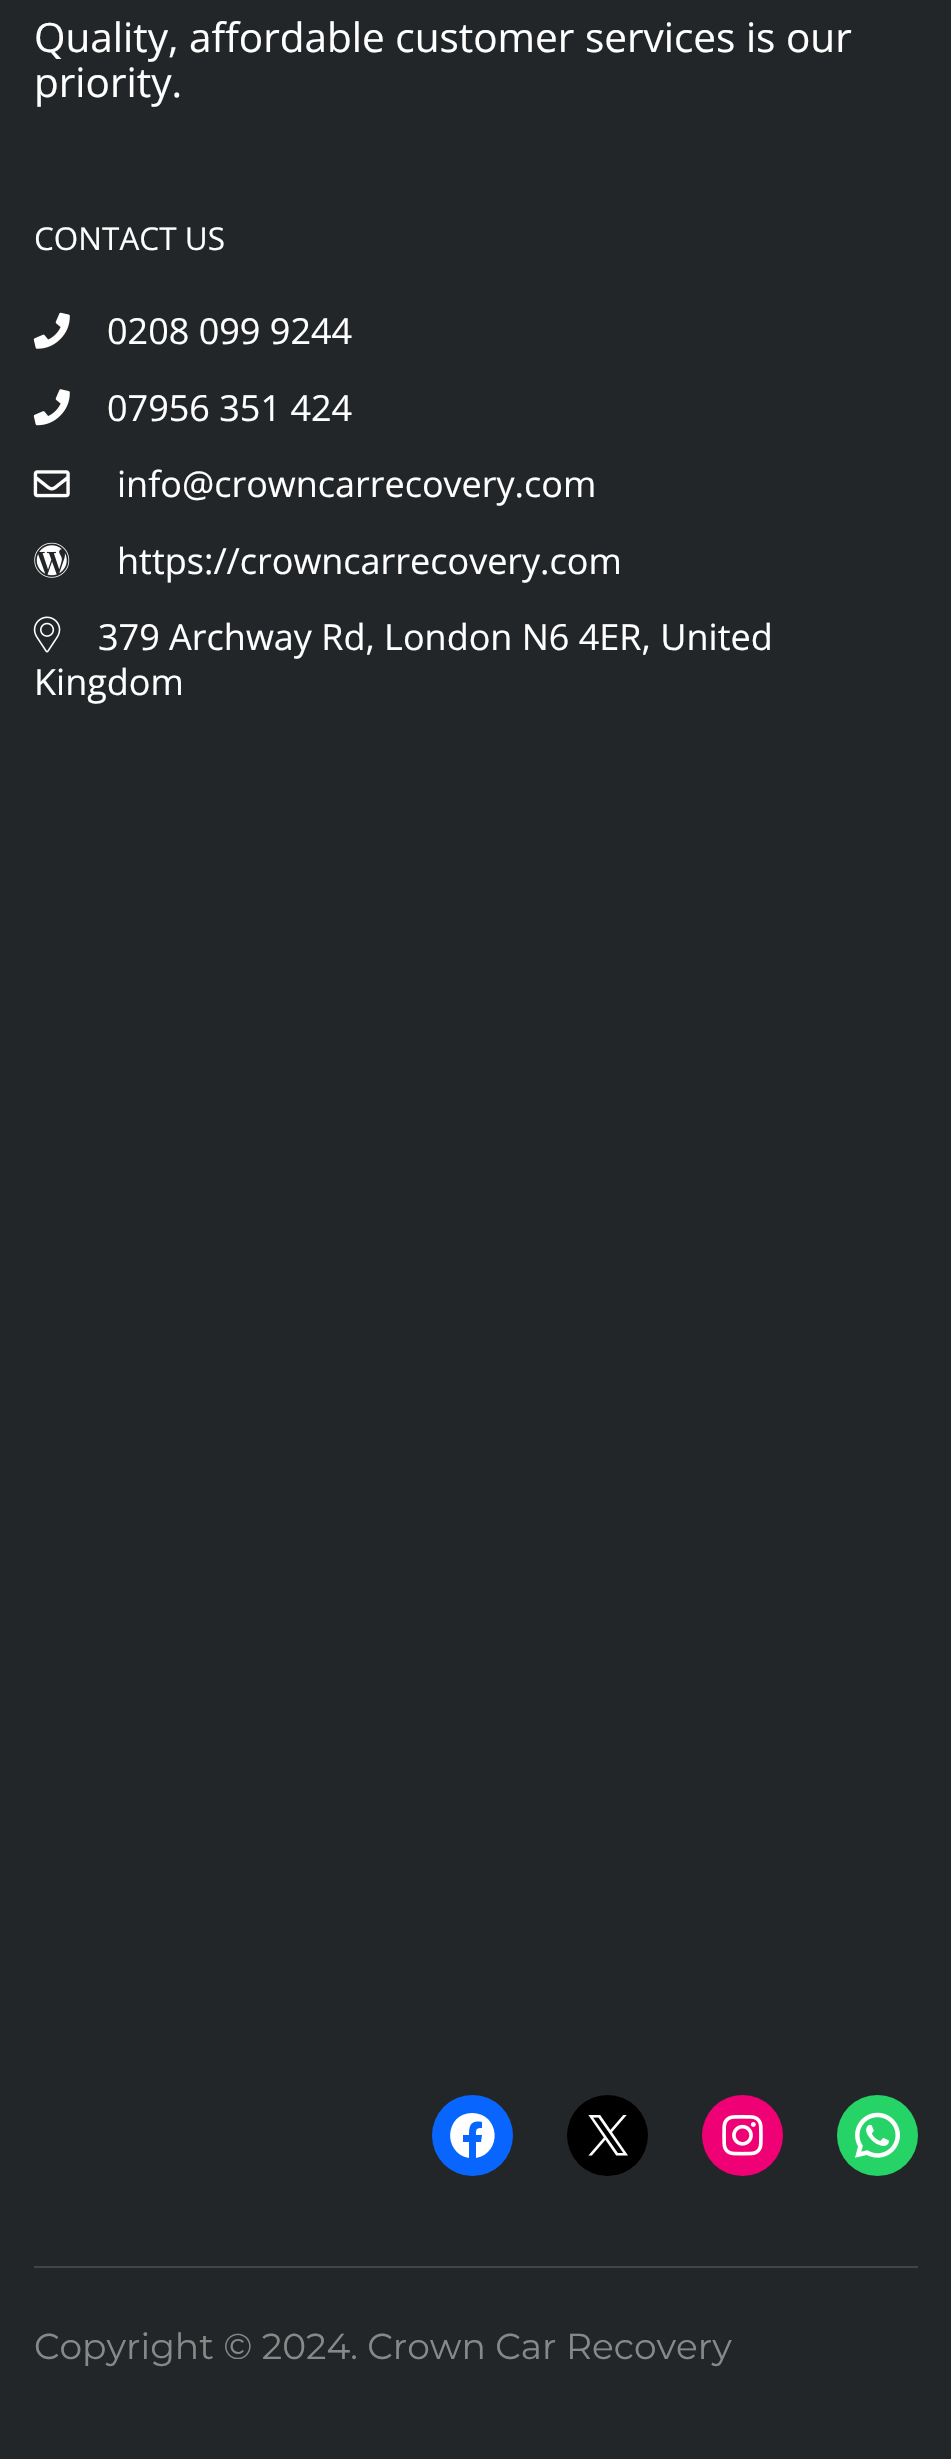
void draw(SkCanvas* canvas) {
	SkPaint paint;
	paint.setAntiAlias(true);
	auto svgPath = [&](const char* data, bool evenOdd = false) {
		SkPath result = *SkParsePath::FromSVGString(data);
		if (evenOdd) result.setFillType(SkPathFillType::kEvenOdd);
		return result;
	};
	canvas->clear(0xff232628);
	SkFont f1(fontMgr->matchFamilyStyle("Open Sans", SkFontStyle::Normal()), 40.5);
	f1.setSubpixel(true);
	paint.setColor(0xffffffff);
	canvas->drawString("Quality, affordable customer services is our", 34, 52, f1, paint);
	canvas->drawString("priority.", 34, 97, f1, paint);
	SkFont f2(fontMgr->matchFamilyStyle("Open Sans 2", SkFontStyle::Normal()), 31.5);
	f2.setSubpixel(true);
	canvas->drawString("CONTACT US", 34, 250, f2, paint);
	canvas->drawImageRect(SkImages::DeferredFromEncodedData(SkData::MakeFromFileName("img1.png")), SkRect::MakeXYWH(33, 312, 37, 37), SkSamplingOptions());
	SkFont f3(fontMgr->matchFamilyStyle("Open Sans", SkFontStyle::Normal()), 36);
	f3.setSubpixel(true);
	canvas->drawString("0208 099 9244", 107, 344, f3, paint);
	canvas->drawImageRect(SkImages::DeferredFromEncodedData(SkData::MakeFromFileName("img2.png")), SkRect::MakeXYWH(33, 389, 37, 37), SkSamplingOptions());
	canvas->drawString("07956 351 424", 107, 421, f3, paint);
	canvas->drawImageRect(SkImages::DeferredFromEncodedData(SkData::MakeFromFileName("img3.png")), SkRect::MakeXYWH(33, 470, 37, 28), SkSamplingOptions());
	canvas->drawString("info@crowncarrecovery.com", 117, 497, f3, paint);
	canvas->drawImageRect(SkImages::DeferredFromEncodedData(SkData::MakeFromFileName("img4.png")), SkRect::MakeXYWH(34, 542, 36, 36), SkSamplingOptions());
	canvas->drawString("https://crowncarrecovery.com", 117, 574, f3, paint);
	canvas->drawImageRect(SkImages::DeferredFromEncodedData(SkData::MakeFromFileName("img5.png")), SkRect::MakeXYWH(33, 616, 28, 37), SkSamplingOptions());
	canvas->drawString("379 Archway Rd, London N6 4ER, United", 98, 650, f3, paint);
	canvas->drawString("Kingdom", 34, 695, f3, paint);
	paint.setColor(0xff0866ff);
	canvas->drawCircle(472.5, 2135.5, 40.5, paint);
	paint.setColor(0xffffffff);
	canvas->drawPath(svgPath("M472 2113C445 2113 442 2153 469 2158V2142H463V2135H469C469 2125 471 2120 482 2122V2128C476 2128 476 2129 476 2135H482L481 2142H476V2158C503 2153 500 2113 472 2113Z"), paint);
	paint.setColor(0xff000000);
	canvas->drawCircle(607.5, 2135.5, 40.5, paint);
	canvas->drawImageRect(SkImages::DeferredFromEncodedData(SkData::MakeFromFileName("img6.png")), SkRect::MakeXYWH(588, 2115, 40, 41), SkSamplingOptions());
	paint.setColor(0xfff00075);
	canvas->drawCircle(742.5, 2135.5, 40.5, paint);
	canvas->drawImageRect(SkImages::DeferredFromEncodedData(SkData::MakeFromFileName("img7.png")), SkRect::MakeXYWH(722, 2115, 41, 41), SkSamplingOptions());
	paint.setColor(0xff25d366);
	canvas->drawCircle(877.5, 2135.5, 40.5, paint);
	canvas->drawImageRect(SkImages::DeferredFromEncodedData(SkData::MakeFromFileName("img8.png")), SkRect::MakeXYWH(855, 2112, 45, 46), SkSamplingOptions());
	paint.setColor(0xff444444);
	canvas->drawRect(SkRect::MakeXYWH(34, 2266, 884, 2), paint);
	SkFont f4(fontMgr->matchFamilyStyle("Montserrat", SkFontStyle::Normal()), 36);
	f4.setSubpixel(true);
	paint.setColor(0xff888888);
	canvas->drawString("Copyright © 2024. Crown Car Recovery", 34, 2359, f4, paint);
}
